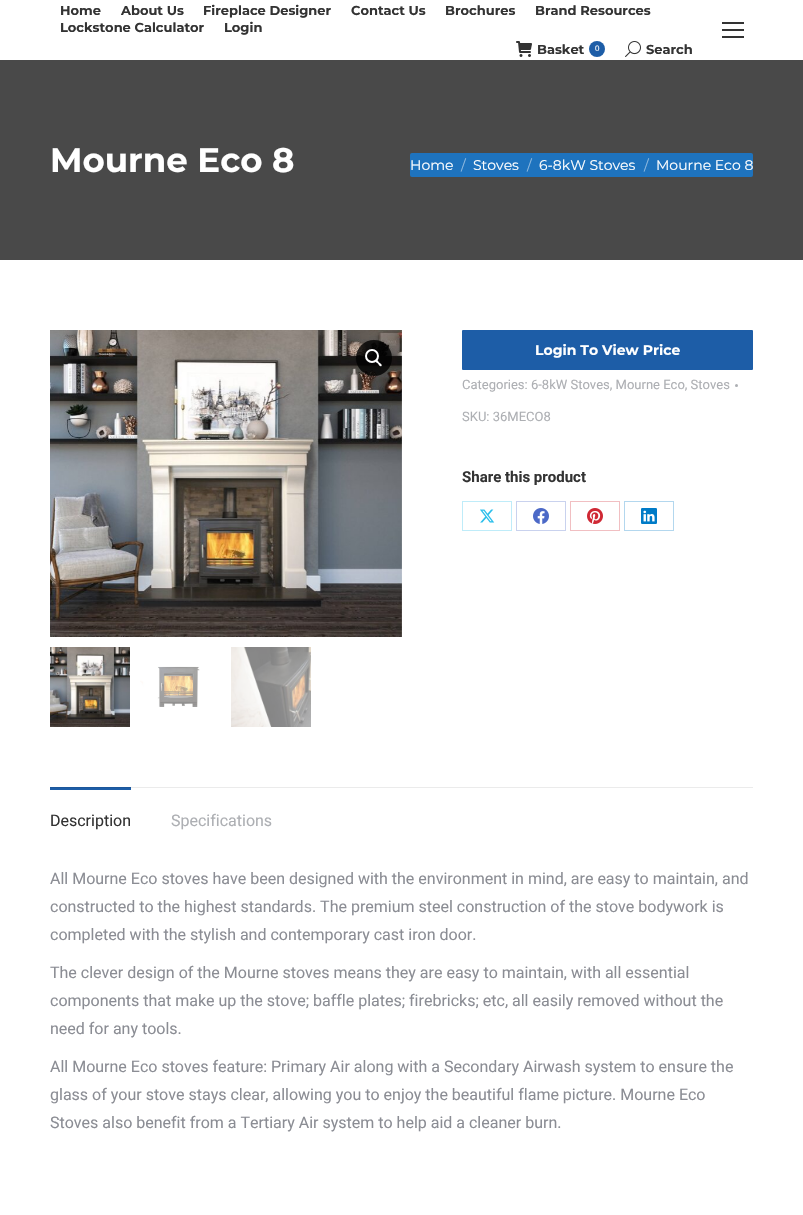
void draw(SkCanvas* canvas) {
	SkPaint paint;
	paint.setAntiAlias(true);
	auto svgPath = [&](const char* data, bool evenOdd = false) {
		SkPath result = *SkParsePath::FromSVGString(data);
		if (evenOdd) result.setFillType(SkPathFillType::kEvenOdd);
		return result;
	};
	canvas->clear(0xffffffff);
	paint.setColor(0xffebebeb);
	canvas->drawRect(SkRect::MakeXYWH(131, 787, 622, 1), paint);
	SkFont f1(fontMgr->matchFamilyStyle("Montserrat", SkFontStyle::Bold()), 13);
	f1.setSubpixel(true);
	paint.setColor(0xff333333);
	canvas->drawString("Home", 60, 15, f1, paint);
	canvas->drawString("About Us", 121, 15, f1, paint);
	canvas->drawString("Fireplace Designer", 203, 15, f1, paint);
	canvas->drawString("Contact Us", 351, 15, f1, paint);
	canvas->drawString("Brochures", 445, 15, f1, paint);
	canvas->drawString("Brand Resources", 535, 15, f1, paint);
	canvas->drawString("Lockstone Calculator", 60, 32, f1, paint);
	canvas->drawString("Login", 224, 32, f1, paint);
	canvas->drawImageRect(SkImages::DeferredFromEncodedData(SkData::MakeFromFileName("img1.png")), SkRect::MakeXYWH(516, 41, 16, 16), SkSamplingOptions());
	canvas->drawString("Basket", 537, 54, f1, paint);
	paint.setColor(0xff1d5da7);
	canvas->drawCircle(597, 49, 8, paint);
	SkFont f2(fontMgr->matchFamilyStyle("Liberation Sans", SkFontStyle::Normal()), 8);
	f2.setSubpixel(true);
	paint.setColor(0xffffffff);
	canvas->drawString("0", 595, 51, f2, paint);
	canvas->drawImageRect(SkImages::DeferredFromEncodedData(SkData::MakeFromFileName("img2.png")), SkRect::MakeXYWH(625, 41, 16, 16), SkSamplingOptions());
	paint.setColor(0xff333333);
	canvas->drawString("Search", 646, 54, f1, paint);
	canvas->drawRect(SkRect::MakeXYWH(722, 22, 22, 2), paint);
	canvas->drawRect(SkRect::MakeXYWH(722, 29, 22, 2), paint);
	canvas->drawRect(SkRect::MakeXYWH(722, 36, 22, 2), paint);
	paint.setColor(0xff494949);
	canvas->drawRect(SkRect::MakeXYWH(0, 60, 803, 200), paint);
	SkFont f3(fontMgr->matchFamilyStyle("Montserrat", SkFontStyle::Bold()), 34);
	f3.setSubpixel(true);
	paint.setColor(0xffffffff);
	canvas->drawString("Mourne Eco 8", 50, 172, f3, paint);
	paint.setColor(0xff1e73be);
	canvas->drawRoundRect(SkRect::MakeXYWH(410, 153, 343, 24), 2, 2, paint);
	SkFont f4(fontMgr->matchFamilyStyle("Montserrat", SkFontStyle::Normal()), 14);
	f4.setSubpixel(true);
	paint.setColor(0xffffffff);
	canvas->drawString("Home", 410, 170, f4, paint);
	paint.setColor(0xff8fb9df);
	canvas->drawString("/", 461, 170, f4, paint);
	paint.setColor(0xffffffff);
	canvas->drawString("Stoves", 473, 170, f4, paint);
	paint.setColor(0xff8fb9df);
	canvas->drawString("/", 527, 170, f4, paint);
	paint.setColor(0xffffffff);
	canvas->drawString("6-8kW Stoves", 539, 170, f4, paint);
	paint.setColor(0xff8fb9df);
	canvas->drawString("/", 644, 170, f4, paint);
	paint.setColor(0xffffffff);
	canvas->drawString("Mourne Eco 8", 656, 170, f4, paint);
	canvas->drawImageRect(SkImages::DeferredFromEncodedData(SkData::MakeFromFileName("img3.png")), SkRect::MakeXYWH(50, 330, 352, 307), SkSamplingOptions());
	paint.setColor(0xcc000000);
	canvas->drawCircle(374, 358, 18, paint);
	paint.setStroke(true);
	paint.setStrokeWidth(2);
	paint.setColor(0xffffffff);
	canvas->drawCircle(372, 356, 6, paint);
	paint.setStroke(false);
	canvas->drawPath(svgPath("M375.5 360C377 359 378.5 361.5 379 362.5C380 363 382.5 364.5 381.5 366C380 367 378.5 364.5 378 363.5C377 363 374.5 361.5 375.5 360Z"), paint);
	canvas->drawImageRect(SkImages::DeferredFromEncodedData(SkData::MakeFromFileName("img4.png")), SkRect::MakeXYWH(50, 647, 80, 80), SkSamplingOptions());
	canvas->drawImageRect(SkImages::DeferredFromEncodedData(SkData::MakeFromFileName("img5.png")), SkRect::MakeXYWH(140, 666, 60, 41), SkSamplingOptions());
	canvas->drawImageRect(SkImages::DeferredFromEncodedData(SkData::MakeFromFileName("img6.png")), SkRect::MakeXYWH(231, 647, 80, 80), SkSamplingOptions());
	paint.setColor(0xff1d5da7);
	canvas->drawRoundRect(SkRect::MakeXYWH(462, 330, 291, 40), 1, 1, paint);
	SkFont f5(fontMgr->matchFamilyStyle("Montserrat", SkFontStyle::Bold()), 14);
	f5.setSubpixel(true);
	paint.setColor(0xffffffff);
	canvas->drawString("Login To View Price", 535, 355, f5, paint);
	SkFont f6(fontMgr->matchFamilyStyle("Roboto", SkFontStyle::Normal()), 13);
	f6.setSubpixel(true);
	paint.setColor(0xffadafb3);
	canvas->drawString("Categories: 6-8kW Stoves, Mourne Eco, Stoves", 462, 389, f6, paint);
	canvas->drawCircle(736.5, 385.5, 1.5, paint);
	canvas->drawString("SKU: 36MECO8", 462, 421, f6, paint);
	SkFont f7(fontMgr->matchFamilyStyle("Roboto", SkFontStyle::Bold()), 15);
	f7.setSubpixel(true);
	paint.setColor(0xff333333);
	canvas->drawString("Share this product", 462, 482, f7, paint);
	paint.setStroke(true);
	paint.setStrokeWidth(1);
	paint.setColor(0xffbfecf9);
	canvas->drawRect(SkRect::MakeXYWH(462.5, 501.5, 49, 29), paint);
	canvas->drawImageRect(SkImages::DeferredFromEncodedData(SkData::MakeFromFileName("img7.png")), SkRect::MakeXYWH(480, 509, 15, 14), SkSamplingOptions());
	paint.setColor(0xffc9d2ee);
	canvas->drawRect(SkRect::MakeXYWH(516.5, 501.5, 49, 29), paint);
	canvas->drawImageRect(SkImages::DeferredFromEncodedData(SkData::MakeFromFileName("img8.png")), SkRect::MakeXYWH(533, 508, 16, 16), SkSamplingOptions());
	paint.setColor(0xfff1bfc2);
	canvas->drawRect(SkRect::MakeXYWH(570.5, 501.5, 49, 29), paint);
	canvas->drawImageRect(SkImages::DeferredFromEncodedData(SkData::MakeFromFileName("img9.png")), SkRect::MakeXYWH(587, 508, 16, 16), SkSamplingOptions());
	paint.setColor(0xffb3d7ee);
	canvas->drawRect(SkRect::MakeXYWH(624.5, 501.5, 49, 29), paint);
	canvas->drawImageRect(SkImages::DeferredFromEncodedData(SkData::MakeFromFileName("img10.png")), SkRect::MakeXYWH(641, 508, 16, 16), SkSamplingOptions());
	paint.setStroke(false);
	paint.setColor(0xff1d5da7);
	canvas->drawRect(SkRect::MakeXYWH(50, 788, 81, 2), paint);
	paint.setColor(0xff1b569a);
	canvas->drawRect(SkRect::MakeXYWH(50, 787, 81, 1), paint);
	SkFont f8(fontMgr->matchFamilyStyle("Roboto", SkFontStyle::Normal()), 16);
	f8.setSubpixel(true);
	paint.setColor(0xff333333);
	canvas->drawString("Description", 50, 826, f8, paint);
	paint.setColor(0xffadafb3);
	canvas->drawString("Specifications", 171, 826, f8, paint);
	paint.setColor(0xff8b8d94);
	canvas->drawString("All Mourne Eco stoves have been designed with the environment in mind, are easy to maintain, and", 50, 884, f8, paint);
	canvas->drawString("constructed to the highest standards. The premium steel construction of the stove bodywork is", 50, 912, f8, paint);
	canvas->drawString("completed with the stylish and contemporary cast iron door.", 50, 940, f8, paint);
	canvas->drawString("The clever design of the Mourne stoves means they are easy to maintain, with all essential", 50, 978, f8, paint);
	canvas->drawString("components that make up the stove; baffle plates; firebricks; etc, all easily removed without the", 50, 1006, f8, paint);
	canvas->drawString("need for any tools.", 50, 1034, f8, paint);
	canvas->drawString("All Mourne Eco stoves feature: Primary Air along with a Secondary Airwash system to ensure the", 50, 1072, f8, paint);
	canvas->drawString("glass of your stove stays clear, allowing you to enjoy the beautiful flame picture. Mourne Eco", 50, 1100, f8, paint);
	canvas->drawString("Stoves also benefit from a Tertiary Air system to help aid a cleaner burn.", 50, 1128, f8, paint);
}
